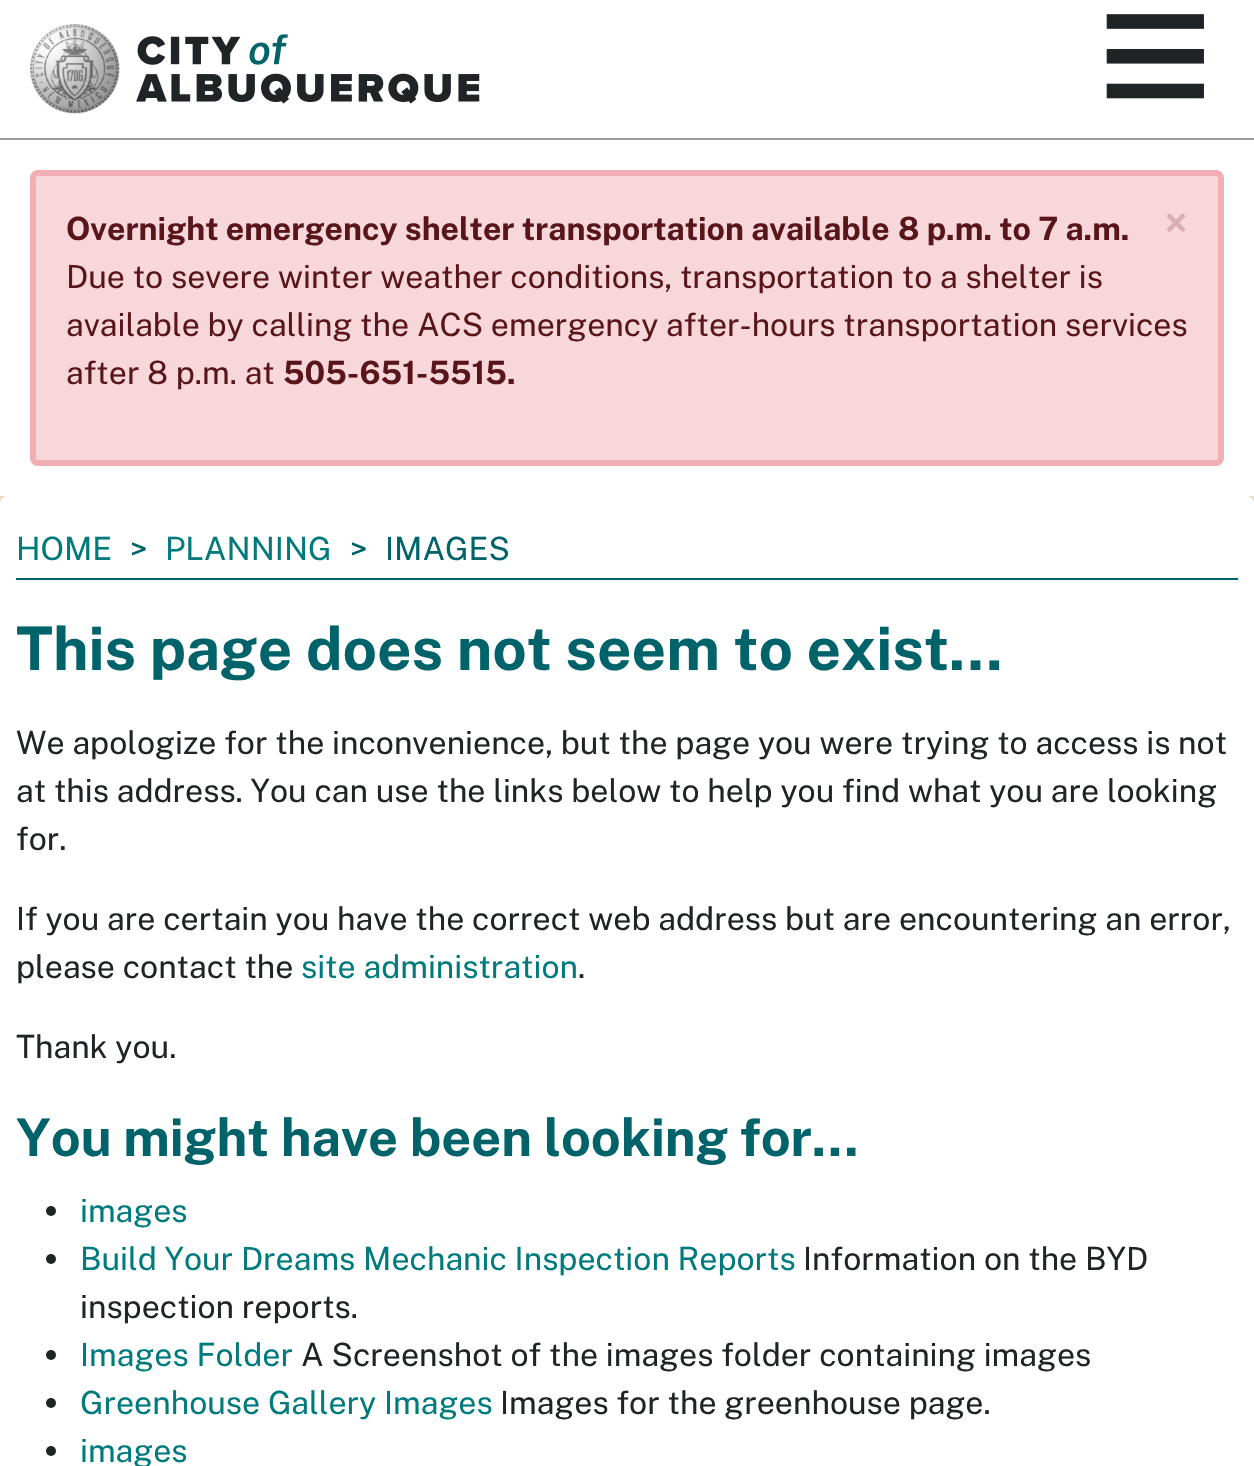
void draw(SkCanvas* canvas) {
	SkPaint paint;
	paint.setAntiAlias(true);
	canvas->clear(0xffffffff);
	SkFont f1(fontMgr->matchFamilyStyle("Liberation Sans", SkFontStyle::Normal()), 200);
	f1.setSubpixel(true);
	paint.setColor(0xff212427);
	canvas->drawString("≡", 1097, 122, f1, paint);
	paint.setColor(0xff9b9b9b);
	canvas->drawRect(SkRect::MakeXYWH(0, 138, 1254, 2), paint);
	canvas->drawImageRect(SkImages::DeferredFromEncodedData(SkData::MakeFromFileName("img1.png")), SkRect::MakeXYWH(30, 24, 90, 90), SkSamplingOptions());
	canvas->drawImageRect(SkImages::DeferredFromEncodedData(SkData::MakeFromFileName("img2.png")), SkRect::MakeXYWH(136, 34, 344, 70), SkSamplingOptions());
	paint.setColor(0xfff8d7da);
	canvas->drawRoundRect(SkRect::MakeXYWH(33, 173, 1188, 290), 5, 5, paint);
	paint.setStroke(true);
	paint.setStrokeWidth(6);
	paint.setColor(0xfff1aeb5);
	canvas->drawRoundRect(SkRect::MakeXYWH(33, 173, 1188, 290), 5, 5, paint);
	SkFont f2(fontMgr->matchFamilyStyle("Public Sans", SkFontStyle::Bold()), 42);
	f2.setSubpixel(true);
	paint.setStroke(false);
	paint.setColor(0xffd8b0b4);
	canvas->drawString("×", 1164, 238, f2, paint);
	SkFont f3(fontMgr->matchFamilyStyle("Public Sans", SkFontStyle::Bold()), 32);
	f3.setSubpixel(true);
	paint.setColor(0xff58151c);
	canvas->drawString("Overnight emergency shelter transportation available", 66, 240, f3, paint);
	canvas->drawString("8 p.m. to 7 a.m.", 898, 240, f3, paint);
	SkFont f4(fontMgr->matchFamilyStyle("Public Sans", SkFontStyle::Normal()), 32);
	f4.setSubpixel(true);
	canvas->drawString("Due to severe winter weather conditions, transportation to a shelter is", 66, 288, f4, paint);
	canvas->drawString("available by calling the ACS emergency after-hours transportation services", 66, 336, f4, paint);
	canvas->drawString("after 8 p.m. at", 66, 384, f4, paint);
	canvas->drawString("505-651-5515.", 283, 384, f3, paint);
	paint.setColor(0xffebddc6);
	canvas->drawRect(SkRect::MakeXYWH(0, 496, 1254, 8), paint);
	paint.setColor(0xffffffff);
	canvas->drawRoundRect(SkRect::MakeXYWH(0, 496, 1254, 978), 8, 8, paint);
	paint.setColor(0xff01636a);
	canvas->drawRect(SkRect::MakeXYWH(16, 578, 1222, 2), paint);
	paint.setColor(0xff017a7d);
	canvas->drawString("HOME", 16, 560, f4, paint);
	paint.setColor(0xff01636a);
	canvas->drawString(">", 130, 560, f4, paint);
	paint.setColor(0xff017a7d);
	canvas->drawString("PLANNING", 165, 560, f4, paint);
	paint.setColor(0xff01636a);
	canvas->drawString(">", 350, 560, f4, paint);
	canvas->drawString("IMAGES", 385, 560, f4, paint);
	SkFont f5(fontMgr->matchFamilyStyle("Public Sans", SkFontStyle::Bold()), 60);
	f5.setSubpixel(true);
	canvas->drawString("This page does not seem to exist…", 16, 670, f5, paint);
	paint.setColor(0xff212427);
	canvas->drawString("We apologize for the inconvenience, but the page you were trying to access is not", 16, 754, f4, paint);
	canvas->drawString("at this address. You can use the links below to help you find what you are looking", 16, 802, f4, paint);
	canvas->drawString("for.", 16, 850, f4, paint);
	canvas->drawString("If you are certain you have the correct web address but are encountering an error,", 16, 930, f4, paint);
	canvas->drawString("please contact the", 16, 978, f4, paint);
	paint.setColor(0xff017a7d);
	canvas->drawString("site administration", 301, 978, f4, paint);
	paint.setColor(0xff212427);
	canvas->drawString(".", 578, 978, f4, paint);
	canvas->drawString("Thank you.", 16, 1058, f4, paint);
	SkFont f6(fontMgr->matchFamilyStyle("Public Sans", SkFontStyle::Bold()), 52);
	f6.setSubpixel(true);
	paint.setColor(0xff01636a);
	canvas->drawString("You might have been looking for…", 16, 1156, f6, paint);
	paint.setColor(0xff212427);
	canvas->drawCircle(51, 1211, 5, paint);
	paint.setColor(0xff017a7d);
	canvas->drawString("images", 80, 1222, f4, paint);
	paint.setColor(0xff212427);
	canvas->drawCircle(51, 1259, 5, paint);
	paint.setColor(0xff017a7d);
	canvas->drawString("Build Your Dreams Mechanic Inspection Reports", 80, 1270, f4, paint);
	paint.setColor(0xff212427);
	canvas->drawString("Information on the BYD", 803, 1270, f4, paint);
	canvas->drawString("inspection reports.", 80, 1318, f4, paint);
	canvas->drawCircle(51, 1355, 5, paint);
	paint.setColor(0xff017a7d);
	canvas->drawString("Images Folder", 80, 1366, f4, paint);
	paint.setColor(0xff212427);
	canvas->drawString("A Screenshot of the images folder containing images", 301, 1366, f4, paint);
	canvas->drawCircle(51, 1403, 5, paint);
	paint.setColor(0xff017a7d);
	canvas->drawString("Greenhouse Gallery Images", 80, 1414, f4, paint);
	paint.setColor(0xff212427);
	canvas->drawString("Images for the greenhouse page.", 500, 1414, f4, paint);
	canvas->drawCircle(51, 1451, 5, paint);
	paint.setColor(0xff017a7d);
	canvas->drawString("images", 80, 1462, f4, paint);
}
